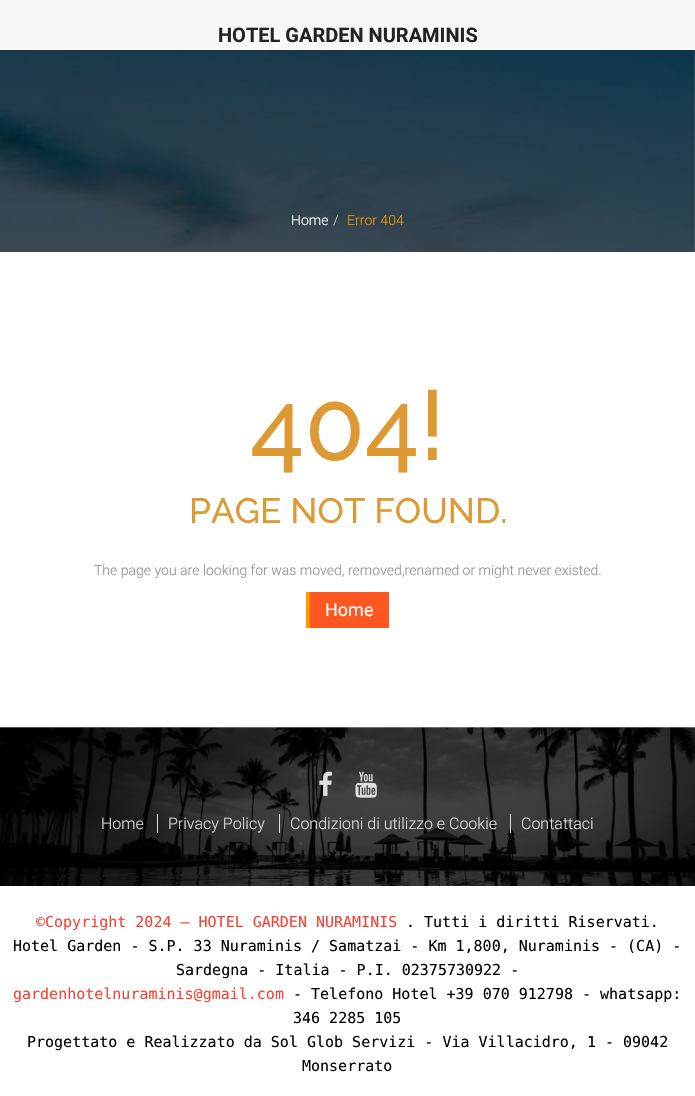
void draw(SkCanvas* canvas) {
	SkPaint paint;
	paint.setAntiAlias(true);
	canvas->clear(0xffffffff);
	paint.setColor(0xfff7f7f7);
	canvas->drawRect(SkRect::MakeXYWH(0, 0, 695, 50), paint);
	SkFont f1(fontMgr->matchFamilyStyle("Roboto", SkFontStyle::Bold()), 20);
	f1.setSubpixel(true);
	paint.setColor(0xff222222);
	canvas->drawString("HOTEL GARDEN NURAMINIS", 218, 42, f1, paint);
	canvas->drawImageRect(SkImages::DeferredFromEncodedData(SkData::MakeFromFileName("img1.png")), SkRect::MakeXYWH(0, 50, 695, 202), SkSamplingOptions());
	SkFont f2(fontMgr->matchFamilyStyle("Roboto", SkFontStyle(300, SkFontStyle::kNormal_Width, SkFontStyle::kUpright_Slant)), 14);
	f2.setSubpixel(true);
	paint.setColor(0xffffffff);
	canvas->drawString("Home", 291, 225, f2, paint);
	paint.setColor(0xffcccccc);
	canvas->drawString("/", 333, 225, f2, paint);
	paint.setColor(0xfff49b00);
	canvas->drawString("Error 404", 347, 225, f2, paint);
	SkFont f3(fontMgr->matchFamilyStyle("Raleway", SkFontStyle(500, SkFontStyle::kNormal_Width, SkFontStyle::kUpright_Slant)), 98);
	f3.setSubpixel(true);
	paint.setColor(0xffdd9933);
	canvas->drawString("404!", 250, 460, f3, paint);
	SkFont f4(fontMgr->matchFamilyStyle("Raleway", SkFontStyle(500, SkFontStyle::kNormal_Width, SkFontStyle::kUpright_Slant)), 35.25);
	f4.setSubpixel(true);
	canvas->drawString("PAGE NOT FOUND.", 189, 523, f4, paint);
	paint.setColor(0xff8d8d8d);
	canvas->drawString("The page you are looking for was moved, removed,renamed or might never existed.", 94, 575, f2, paint);
	paint.setColor(0xffff5722);
	canvas->drawRect(SkRect::MakeXYWH(310, 592, 79, 36), paint);
	paint.setColor(0xffff9800);
	canvas->drawRect(SkRect::MakeXYWH(306, 592, 4, 36), paint);
	SkFont f5(fontMgr->matchFamilyStyle("Roboto", SkFontStyle::Normal()), 18);
	f5.setSubpixel(true);
	paint.setColor(0xffffffff);
	canvas->drawString("Home", 325, 616, f5, paint);
	canvas->drawImageRect(SkImages::DeferredFromEncodedData(SkData::MakeFromFileName("img2.png")), SkRect::MakeXYWH(0, 727, 695, 159), SkSamplingOptions());
	paint.setColor(0x52f1f1f1);
	canvas->drawRect(SkRect::MakeXYWH(0, 727, 695, 1), paint);
	canvas->drawImageRect(SkImages::DeferredFromEncodedData(SkData::MakeFromFileName("img3.png")), SkRect::MakeXYWH(319, 771, 13, 25), SkSamplingOptions());
	canvas->drawImageRect(SkImages::DeferredFromEncodedData(SkData::MakeFromFileName("img4.png")), SkRect::MakeXYWH(355, 771, 22, 27), SkSamplingOptions());
	SkFont f6(fontMgr->matchFamilyStyle("Roboto", SkFontStyle(300, SkFontStyle::kNormal_Width, SkFontStyle::kUpright_Slant)), 16);
	f6.setSubpixel(true);
	paint.setColor(0xffdedede);
	canvas->drawString("Home", 101, 829, f6, paint);
	canvas->drawString("Privacy Policy", 168, 829, f6, paint);
	canvas->drawRect(SkRect::MakeXYWH(157, 814, 1, 19), paint);
	canvas->drawString("Condizioni di utilizzo e Cookie", 290, 829, f6, paint);
	canvas->drawRect(SkRect::MakeXYWH(279, 814, 1, 19), paint);
	canvas->drawString("Contattaci", 521, 829, f6, paint);
	canvas->drawRect(SkRect::MakeXYWH(510, 814, 1, 19), paint);
	SkFont f7(fontMgr->matchFamilyStyle("DejaVu Sans Mono", SkFontStyle::Normal()), 15);
	f7.setSubpixel(true);
	paint.setColor(0xfff44336);
	canvas->drawString("©Copyright 2024 – HOTEL GARDEN NURAMINIS", 36, 927, f7, paint);
	paint.setColor(0xff000102);
	canvas->drawString(". Tutti i diritti Riservati.", 406, 927, f7, paint);
	canvas->drawString("Hotel Garden - S.P. 33 Nuraminis / Samatzai - Km 1,800, Nuraminis - (CA) -", 13, 951, f7, paint);
	canvas->drawString("Sardegna - Italia - P.I. 02375730922 -", 176, 975, f7, paint);
	paint.setColor(0xfff44336);
	canvas->drawString("gardenhotelnuraminis@gmail.com", 13, 999, f7, paint);
	paint.setColor(0xff000102);
	canvas->drawString("- Telefono Hotel +39 070 912798 - whatsapp:", 293, 999, f7, paint);
	canvas->drawString("346 2285 105", 293, 1023, f7, paint);
	canvas->drawString("Progettato e Realizzato da Sol Glob Servizi - Via Villacidro, 1 - 09042", 27, 1047, f7, paint);
	canvas->drawString("Monserrato", 302, 1071, f7, paint);
}
